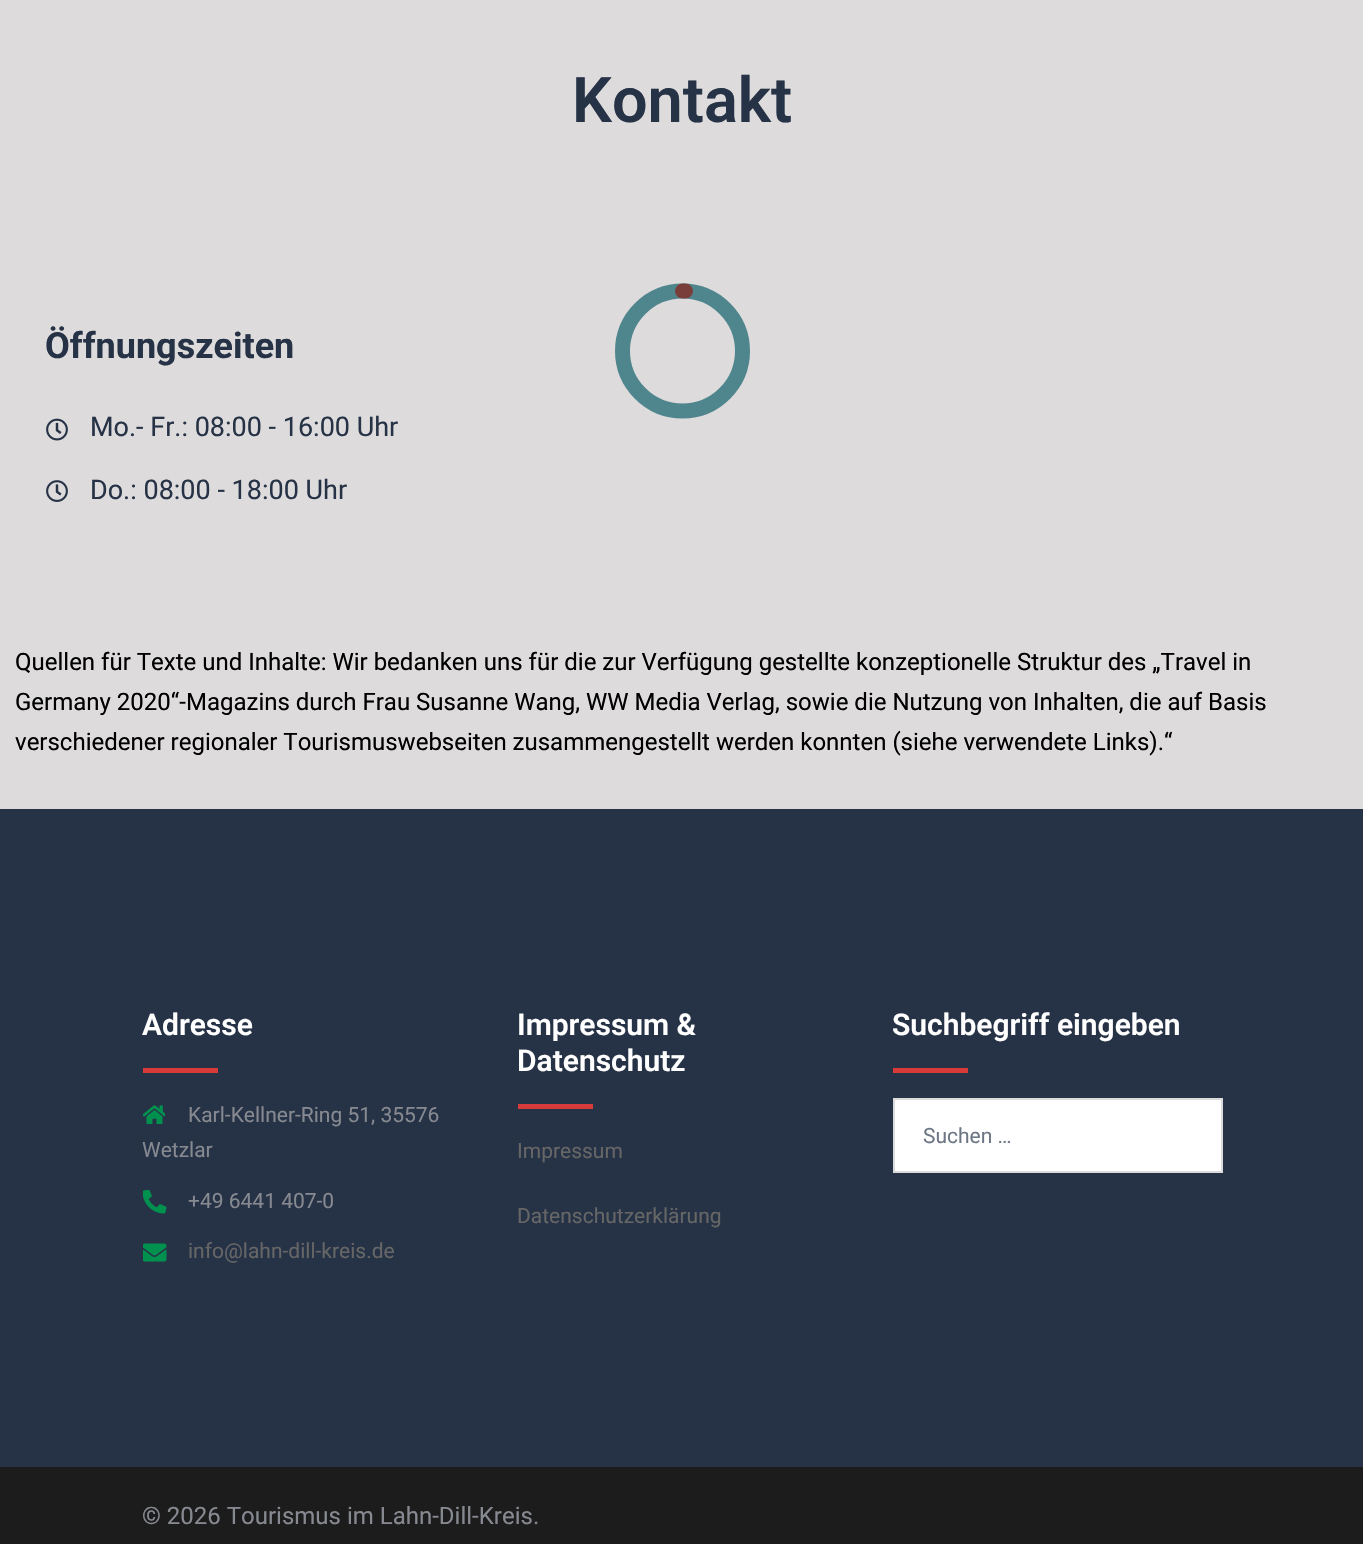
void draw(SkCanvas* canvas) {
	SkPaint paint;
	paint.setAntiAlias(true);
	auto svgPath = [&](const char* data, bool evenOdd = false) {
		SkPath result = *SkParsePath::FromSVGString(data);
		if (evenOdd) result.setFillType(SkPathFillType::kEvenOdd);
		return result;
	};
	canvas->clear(0xffdddbdb);
	SkFont f1(fontMgr->matchFamilyStyle("Roboto", SkFontStyle(600, SkFontStyle::kNormal_Width, SkFontStyle::kUpright_Slant)), 63);
	f1.setSubpixel(true);
	paint.setColor(0xff263246);
	canvas->drawString("Kontakt", 572, 122, f1, paint);
	SkFont f2(fontMgr->matchFamilyStyle("Roboto", SkFontStyle::Bold()), 36);
	f2.setSubpixel(true);
	canvas->drawString("Öffnungszeiten", 45, 358, f2, paint);
	canvas->drawImageRect(SkImages::DeferredFromEncodedData(SkData::MakeFromFileName("img1.png")), SkRect::MakeXYWH(46, 418, 22, 23), SkSamplingOptions());
	SkFont f3(fontMgr->matchFamilyStyle("Roboto", SkFontStyle::Normal()), 27);
	f3.setSubpixel(true);
	canvas->drawString("Mo.- Fr.: 08:00 - 16:00 Uhr", 90, 436, f3, paint);
	canvas->drawImageRect(SkImages::DeferredFromEncodedData(SkData::MakeFromFileName("img2.png")), SkRect::MakeXYWH(46, 480, 22, 22), SkSamplingOptions());
	canvas->drawString("Do.: 08:00 - 18:00 Uhr", 90, 499, f3, paint);
	paint.setStroke(true);
	paint.setStrokeWidth(15);
	paint.setColor(0xff4f868e);
	canvas->drawPath(svgPath("M682.5 291C715.5 291 742.5 318 742.5 351C742.5 384 715.5 411 682.5 411C649.5 411 622.5 384 622.5 351C622.5 318 649.5 291 682.5 291"), paint);
	paint.setStrokeCap(SkPaint::kRound_Cap);
	paint.setColor(0xff7a3e3a);
	canvas->drawPath(svgPath("M682.5 291H685.5"), paint);
	SkFont f4(fontMgr->matchFamilyStyle("Roboto", SkFontStyle::Normal()), 24);
	f4.setSubpixel(true);
	paint.setStroke(false);
	paint.setColor(0xff000000);
	canvas->drawString("Quellen für Texte und Inhalte: Wir bedanken uns für die zur Verfügung gestellte konzeptionelle Struktur des „Travel in", 15, 670, f4, paint);
	canvas->drawString("Germany 2020“-Magazins durch Frau Susanne Wang, WW Media Verlag, sowie die Nutzung von Inhalten, die auf Basis", 15, 710, f4, paint);
	canvas->drawString("verschiedener regionaler Tourismuswebseiten zusammengestellt werden konnten (siehe verwendete Links).“", 15, 750, f4, paint);
	paint.setColor(0xff263246);
	canvas->drawRect(SkRect::MakeXYWH(0, 809, 1363, 658), paint);
	SkFont f5(fontMgr->matchFamilyStyle("Roboto", SkFontStyle(600, SkFontStyle::kNormal_Width, SkFontStyle::kUpright_Slant)), 30);
	f5.setSubpixel(true);
	paint.setColor(0xffffffff);
	canvas->drawString("Adresse", 142, 1035, f5, paint);
	paint.setColor(0xffd83a3a);
	canvas->drawRect(SkRect::MakeXYWH(143, 1068, 75, 5), paint);
	canvas->drawImageRect(SkImages::DeferredFromEncodedData(SkData::MakeFromFileName("img3.png")), SkRect::MakeXYWH(143, 1105, 22, 19), SkSamplingOptions());
	SkFont f6(fontMgr->matchFamilyStyle("Roboto", SkFontStyle::Normal()), 21);
	f6.setSubpixel(true);
	paint.setColor(0xff868990);
	canvas->drawString("Karl-Kellner-Ring 51, 35576", 188, 1122, f6, paint);
	canvas->drawString("Wetzlar", 142, 1157, f6, paint);
	canvas->drawImageRect(SkImages::DeferredFromEncodedData(SkData::MakeFromFileName("img4.png")), SkRect::MakeXYWH(143, 1190, 24, 24), SkSamplingOptions());
	canvas->drawString("+49 6441 407-0", 188, 1208, f6, paint);
	canvas->drawImageRect(SkImages::DeferredFromEncodedData(SkData::MakeFromFileName("img5.png")), SkRect::MakeXYWH(143, 1243, 24, 19), SkSamplingOptions());
	paint.setColor(0xff666666);
	canvas->drawString("info@lahn-dill-kreis.de", 188, 1258, f6, paint);
	paint.setColor(0xffffffff);
	canvas->drawString("Impressum &", 517, 1035, f5, paint);
	canvas->drawString("Datenschutz", 517, 1071, f5, paint);
	paint.setColor(0xffd83a3a);
	canvas->drawRect(SkRect::MakeXYWH(518, 1104, 75, 5), paint);
	paint.setColor(0xff666666);
	canvas->drawString("Impressum", 517, 1158, f6, paint);
	canvas->drawString("Datenschutzerklärung", 517, 1223, f6, paint);
	paint.setColor(0xffffffff);
	canvas->drawString("Suchbegriff eingeben", 892, 1035, f5, paint);
	paint.setColor(0xffd83a3a);
	canvas->drawRect(SkRect::MakeXYWH(893, 1068, 75, 5), paint);
	paint.setColor(0xffffffff);
	canvas->drawRect(SkRect::MakeXYWH(894, 1099, 328, 73), paint);
	paint.setStroke(true);
	paint.setStrokeWidth(2);
	paint.setStrokeCap(SkPaint::kButt_Cap);
	paint.setColor(0xffdbdbdb);
	canvas->drawRect(SkRect::MakeXYWH(894, 1099, 328, 73), paint);
	paint.setStroke(false);
	paint.setColor(0xff6d7685);
	canvas->drawString("Suchen …", 923, 1143, f6, paint);
	paint.setColor(0xff1c1c1c);
	canvas->drawRect(SkRect::MakeXYWH(0, 1467, 1363, 77), paint);
	paint.setColor(0xff868990);
	canvas->drawString("© 2026 Tourismus im Lahn-Dill-Kreis.", 142, 1524, f4, paint);
}
